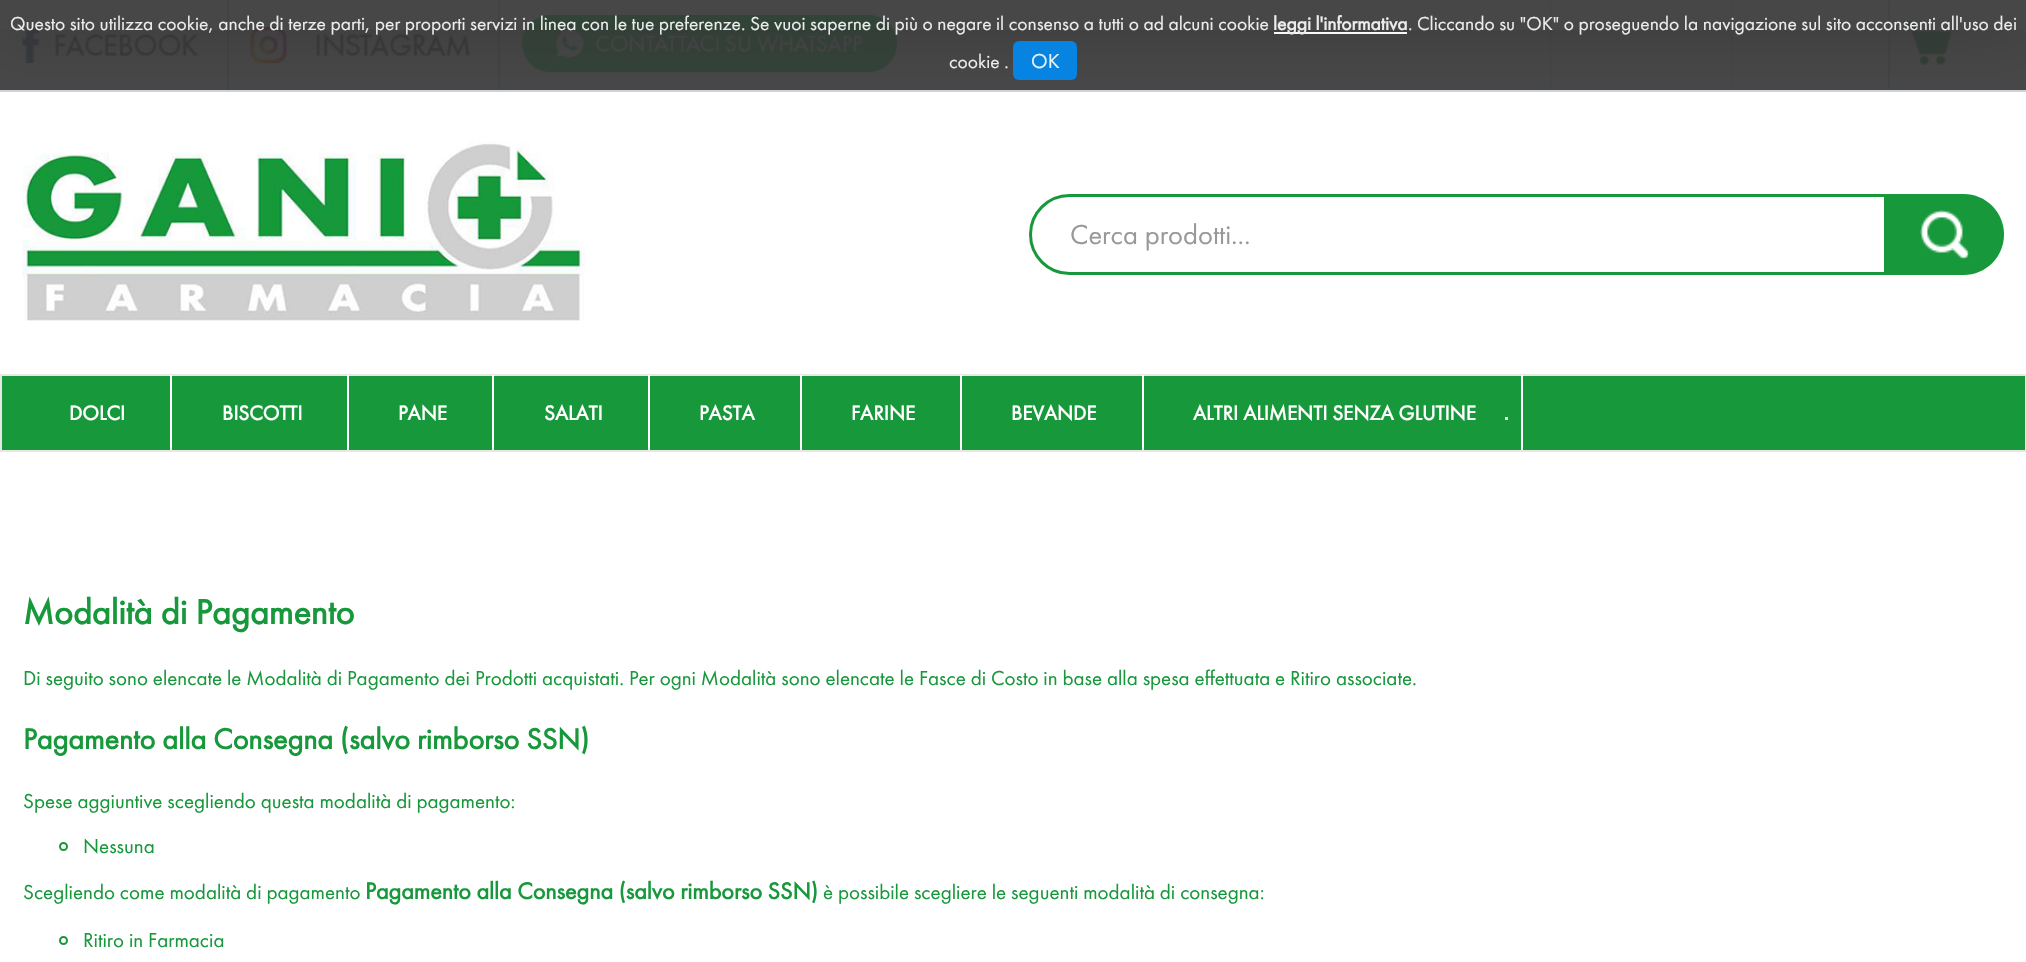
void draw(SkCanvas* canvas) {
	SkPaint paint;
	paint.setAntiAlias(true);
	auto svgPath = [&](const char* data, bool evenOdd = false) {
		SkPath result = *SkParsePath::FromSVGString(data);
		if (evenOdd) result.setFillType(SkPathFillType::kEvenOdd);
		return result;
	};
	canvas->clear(0xffffffff);
	paint.setColor(0xffced4da);
	canvas->drawRect(SkRect::MakeXYWH(0, 90, 2026, 2), paint);
	canvas->drawRect(SkRect::MakeXYWH(227, 0, 2, 90), paint);
	canvas->drawImageRect(SkImages::DeferredFromEncodedData(SkData::MakeFromFileName("img1.png")), SkRect::MakeXYWH(22, 27, 176, 36), SkSamplingOptions());
	canvas->drawRect(SkRect::MakeXYWH(498, 0, 2, 90), paint);
	canvas->drawImageRect(SkImages::DeferredFromEncodedData(SkData::MakeFromFileName("img2.png")), SkRect::MakeXYWH(250, 27, 220, 36), SkSamplingOptions());
	canvas->drawImageRect(SkImages::DeferredFromEncodedData(SkData::MakeFromFileName("img3.png")), SkRect::MakeXYWH(522, 15, 375, 57), SkSamplingOptions());
	canvas->drawPath(svgPath("M1551 0V90L1550 88V2Z"), paint);
	canvas->drawPath(svgPath("M1732 0V90L1731 88V2Z"), paint);
	canvas->drawPath(svgPath("M1890 0V90L1888 88V2Z"), paint);
	canvas->drawImageRect(SkImages::DeferredFromEncodedData(SkData::MakeFromFileName("img4.png")), SkRect::MakeXYWH(1903, 21, 49, 44), SkSamplingOptions());
	canvas->save();
	canvas->clipRect(SkRect::MakeXYWH(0, 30, 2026, 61));
	paint.setColor(0xff444444);
	paint.setMaskFilter(SkMaskFilter::MakeBlur(kNormal_SkBlurStyle, 30));
	canvas->drawRect(SkRect::MakeXYWH(0, 0, 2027, 30), paint);
	paint.setMaskFilter(nullptr);
	canvas->restore();
	paint.setColor(0xe6333333);
	canvas->drawRect(SkRect::MakeXYWH(0, 0, 2026, 90), paint);
	SkFont f1(fontMgr->matchFamilyStyle("Futura PT", SkFontStyle::Normal()), 19.5);
	f1.setSubpixel(true);
	paint.setColor(0xffececec);
	canvas->drawString("Questo sito utilizza cookie, anche di terze parti, per proporti servizi in linea con le tue preferenze. Se vuoi saperne di più o negare il consenso a tutti o ad alcuni cookie", 10, 30, f1, paint);
	paint.setColor(0xfff9f9f9);
	canvas->drawRect(SkRect::MakeXYWH(1274, 32, 133, 2), paint);
	SkFont f2(fontMgr->matchFamilyStyle("Futura PT", SkFontStyle::Bold()), 19.5);
	f2.setSubpixel(true);
	paint.setColor(0xffececec);
	canvas->drawString("leggi l'informativa", 1273, 30, f2, paint);
	canvas->drawString(".", 1408, 30, f1, paint);
	canvas->drawString("Cliccando su \"OK\" o proseguendo la navigazione sul sito acconsenti all'uso dei", 1417, 30, f1, paint);
	canvas->drawString("cookie .", 949, 68, f1, paint);
	paint.setColor(0xe60089f2);
	canvas->drawRoundRect(SkRect::MakeXYWH(1013, 41, 64, 39), 6, 6, paint);
	SkFont f3(fontMgr->matchFamilyStyle("Futura PT", SkFontStyle::Normal()), 21);
	f3.setSubpixel(true);
	paint.setColor(0xffe6f3fc);
	canvas->drawString("OK", 1031, 68, f3, paint);
	canvas->drawImageRect(SkImages::DeferredFromEncodedData(SkData::MakeFromFileName("img5.png")), SkRect::MakeXYWH(22, 141, 563, 180), SkSamplingOptions());
	paint.setStroke(true);
	paint.setStrokeWidth(3);
	paint.setColor(0xff17983b);
	canvas->drawRoundRect(SkRect::MakeXYWH(1030.5, 195.5, 939, 78), 39, 39, paint);
	SkFont f4(fontMgr->matchFamilyStyle("Futura PT", SkFontStyle::Normal()), 28.5);
	f4.setSubpixel(true);
	paint.setStroke(false);
	paint.setColor(0xff999999);
	canvas->drawString("Cerca prodotti...", 1070, 244, f4, paint);
	paint.setColor(0xff17983b);
	canvas->drawPath(svgPath("M1884 194H1963.5C1986 194 2004 212 2004 234.5C2004 257 1986 275 1963.5 275H1884Z"), paint);
	canvas->drawImageRect(SkImages::DeferredFromEncodedData(SkData::MakeFromFileName("img6.png")), SkRect::MakeXYWH(1920, 210, 50, 50), SkSamplingOptions());
	canvas->drawRect(SkRect::MakeXYWH(1, 375, 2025, 76), paint);
	paint.setStroke(true);
	paint.setStrokeWidth(2);
	paint.setColor(0xffe7e7e7);
	canvas->drawRect(SkRect::MakeXYWH(1, 375, 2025, 76), paint);
	paint.setStroke(false);
	paint.setColor(0xffffffff);
	canvas->drawRect(SkRect::MakeXYWH(170, 375, 2, 75), paint);
	SkFont f5(fontMgr->matchFamilyStyle("Futura PT", SkFontStyle::Bold()), 21);
	f5.setSubpixel(true);
	canvas->drawString("DOLCI", 69, 420, f5, paint);
	canvas->drawRect(SkRect::MakeXYWH(347, 375, 2, 75), paint);
	canvas->drawString("BISCOTTI", 222, 420, f5, paint);
	canvas->drawRect(SkRect::MakeXYWH(492, 375, 2, 75), paint);
	canvas->drawString("PANE", 398, 420, f5, paint);
	canvas->drawRect(SkRect::MakeXYWH(648, 375, 2, 75), paint);
	canvas->drawString("SALATI", 544, 420, f5, paint);
	canvas->drawRect(SkRect::MakeXYWH(800, 375, 2, 75), paint);
	canvas->drawString("PASTA", 699, 420, f5, paint);
	canvas->drawRect(SkRect::MakeXYWH(960, 375, 2, 75), paint);
	canvas->drawString("FARINE", 851, 420, f5, paint);
	canvas->drawRect(SkRect::MakeXYWH(1142, 375, 2, 75), paint);
	canvas->drawString("BEVANDE", 1011, 420, f5, paint);
	canvas->drawRect(SkRect::MakeXYWH(1521, 375, 2, 75), paint);
	canvas->drawString("ALTRI ALIMENTI SENZA GLUTINE", 1193, 420, f5, paint);
	paint.setColor(0xffebebeb);
	canvas->drawRect(SkRect::MakeXYWH(1505, 417, 3, 3), paint);
	SkFont f6(fontMgr->matchFamilyStyle("Futura PT", SkFontStyle::Bold()), 36);
	f6.setSubpixel(true);
	paint.setColor(0xff17983b);
	canvas->drawString("Modalità di Pagamento", 23, 624, f6, paint);
	canvas->drawString("Di seguito sono elencate le Modalità di Pagamento dei Prodotti acquistati. Per ogni Modalità sono elencate le Fasce di Costo in base alla spesa effettuata e Ritiro associate.", 23, 685, f3, paint);
	SkFont f7(fontMgr->matchFamilyStyle("Futura PT", SkFontStyle::Bold()), 30);
	f7.setSubpixel(true);
	canvas->drawString("Pagamento alla Consegna (salvo rimborso SSN)", 23, 749, f7, paint);
	canvas->drawString("Spese aggiuntive scegliendo questa modalità di pagamento:", 23, 808, f3, paint);
	paint.setStroke(true);
	canvas->drawCircle(63.5, 846.5, 3.5, paint);
	paint.setStroke(false);
	canvas->drawString("Nessuna", 83, 853, f3, paint);
	canvas->drawString("Scegliendo come modalità di pagamento", 23, 899, f3, paint);
	SkFont f8(fontMgr->matchFamilyStyle("Futura PT", SkFontStyle::Bold()), 24);
	f8.setSubpixel(true);
	canvas->drawString("Pagamento alla Consegna (salvo rimborso SSN)", 365, 899, f8, paint);
	canvas->drawString("è possibile scegliere le seguenti modalità di consegna:", 823, 899, f3, paint);
	paint.setStroke(true);
	canvas->drawCircle(63.5, 940.5, 3.5, paint);
	paint.setStroke(false);
	canvas->drawString("Ritiro in Farmacia", 83, 947, f3, paint);
}
